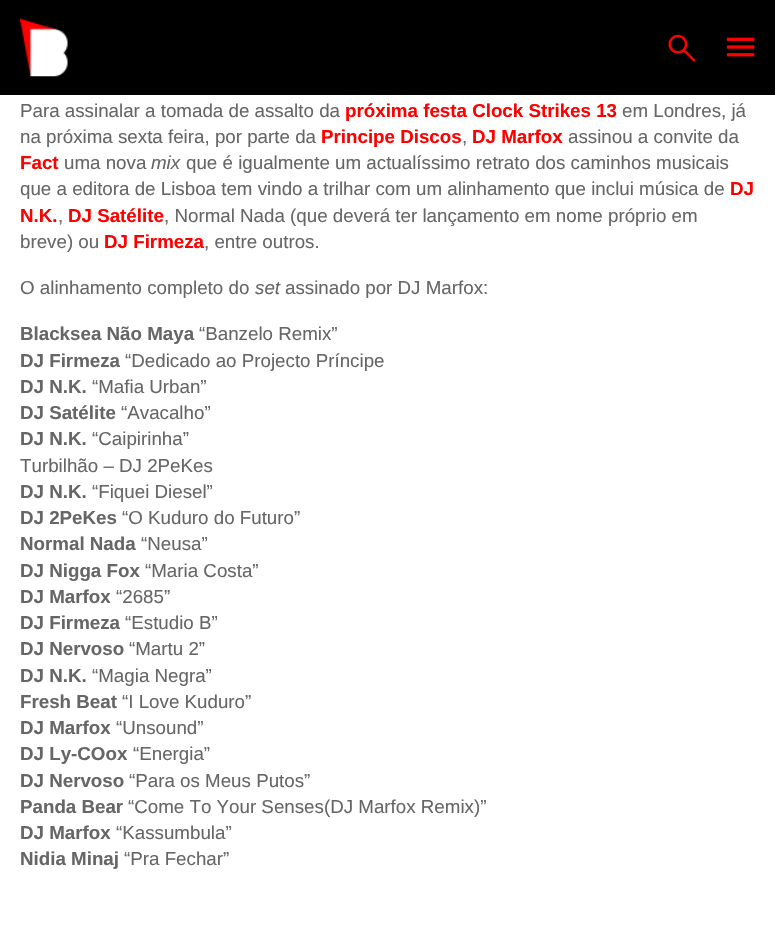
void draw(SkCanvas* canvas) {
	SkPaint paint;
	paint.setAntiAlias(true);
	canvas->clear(0xffffffff);
	paint.setColor(0xff000000);
	canvas->drawRect(SkRect::MakeXYWH(0, 0, 775, 95), paint);
	canvas->drawImageRect(SkImages::DeferredFromEncodedData(SkData::MakeFromFileName("img1.png")), SkRect::MakeXYWH(20, 18, 48, 59), SkSamplingOptions());
	canvas->drawImageRect(SkImages::DeferredFromEncodedData(SkData::MakeFromFileName("img2.png")), SkRect::MakeXYWH(668, 34, 28, 28), SkSamplingOptions());
	canvas->drawImageRect(SkImages::DeferredFromEncodedData(SkData::MakeFromFileName("img3.png")), SkRect::MakeXYWH(726, 37, 29, 20), SkSamplingOptions());
	SkFont f1(fontMgr->matchFamilyStyle("Liberation Sans", SkFontStyle::Normal()), 18.75);
	f1.setSubpixel(true);
	paint.setColor(0xff666666);
	canvas->drawString("Para assinalar a tomada de assalto da", 20, 117, f1, paint);
	SkFont f2(fontMgr->matchFamilyStyle("Liberation Sans", SkFontStyle::Bold()), 18.75);
	f2.setSubpixel(true);
	paint.setColor(0xffff0000);
	canvas->drawString("próxima festa Clock Strikes 13", 345, 117, f2, paint);
	paint.setColor(0xff666666);
	canvas->drawString("em Londres, já", 622, 117, f1, paint);
	canvas->drawString("na próxima sexta feira, por parte da", 20, 143, f1, paint);
	paint.setColor(0xffff0000);
	canvas->drawString("Principe Discos", 321, 143, f2, paint);
	paint.setColor(0xff666666);
	canvas->drawString(",", 462, 143, f1, paint);
	paint.setColor(0xffff0000);
	canvas->drawString("DJ Marfox", 472, 143, f2, paint);
	paint.setColor(0xff666666);
	canvas->drawString("assinou a convite da", 568, 143, f1, paint);
	paint.setColor(0xffff0000);
	canvas->drawString("Fact", 20, 169, f2, paint);
	paint.setColor(0xff666666);
	canvas->drawString("uma nova", 64, 169, f1, paint);
	SkFont f3(fontMgr->matchFamilyStyle("Liberation Sans", SkFontStyle::Italic()), 18.75);
	f3.setSubpixel(true);
	canvas->drawString("mix", 151, 169, f3, paint);
	canvas->drawString("que é igualmente um actualíssimo retrato dos caminhos musicais", 186, 169, f1, paint);
	canvas->drawString("que a editora de Lisboa tem vindo a trilhar com um alinhamento que inclui música de", 20, 195, f1, paint);
	paint.setColor(0xffff0000);
	canvas->drawString("DJ", 730, 195, f2, paint);
	canvas->drawString("N.K.", 20, 222, f2, paint);
	canvas->drawString("DJ Satélite", 68, 222, f2, paint);
	paint.setColor(0xff666666);
	canvas->drawString(", Normal Nada (que deverá ter lançamento em nome próprio em", 164, 222, f1, paint);
	canvas->drawString(",", 58, 222, f1, paint);
	canvas->drawString("breve) ou", 20, 248, f1, paint);
	paint.setColor(0xffff0000);
	canvas->drawString("DJ Firmeza", 104, 248, f2, paint);
	paint.setColor(0xff666666);
	canvas->drawString(", entre outros.", 204, 248, f1, paint);
	canvas->drawString("O alinhamento completo do", 20, 294, f1, paint);
	canvas->drawString("set", 255, 294, f3, paint);
	canvas->drawString("assinado por DJ Marfox:", 285, 294, f1, paint);
	canvas->drawString("Blacksea Não Maya", 20, 340, f2, paint);
	canvas->drawString("“Banzelo Remix”", 199, 340, f1, paint);
	canvas->drawString("DJ Firmeza", 20, 367, f2, paint);
	canvas->drawString("“Dedicado ao Projecto Príncipe", 125, 367, f1, paint);
	canvas->drawString("DJ N.K.", 20, 393, f2, paint);
	canvas->drawString("“Mafia Urban”", 92, 393, f1, paint);
	canvas->drawString("DJ Satélite", 20, 419, f2, paint);
	canvas->drawString("“Avacalho”", 121, 419, f1, paint);
	canvas->drawString("DJ N.K.", 20, 445, f2, paint);
	canvas->drawString("“Caipirinha”", 92, 445, f1, paint);
	canvas->drawString("Turbilhão – DJ 2PeKes", 20, 472, f1, paint);
	canvas->drawString("DJ N.K.", 20, 498, f2, paint);
	canvas->drawString("“Fiquei Diesel”", 92, 498, f1, paint);
	canvas->drawString("DJ 2PeKes", 20, 524, f2, paint);
	canvas->drawString("“O Kuduro do Futuro”", 122, 524, f1, paint);
	canvas->drawString("Normal Nada", 20, 550, f2, paint);
	canvas->drawString("“Neusa”", 141, 550, f1, paint);
	canvas->drawString("DJ Nigga Fox", 20, 577, f2, paint);
	canvas->drawString("“Maria Costa”", 145, 577, f1, paint);
	canvas->drawString("DJ Marfox", 20, 603, f2, paint);
	canvas->drawString("“2685”", 116, 603, f1, paint);
	canvas->drawString("DJ Firmeza", 20, 629, f2, paint);
	canvas->drawString("“Estudio B”", 125, 629, f1, paint);
	canvas->drawString("DJ Nervoso", 20, 655, f2, paint);
	canvas->drawString("“Martu 2”", 129, 655, f1, paint);
	canvas->drawString("DJ N.K.", 20, 682, f2, paint);
	canvas->drawString("“Magia Negra”", 92, 682, f1, paint);
	canvas->drawString("Fresh Beat", 20, 708, f2, paint);
	canvas->drawString("“I Love Kuduro”", 122, 708, f1, paint);
	canvas->drawString("DJ Marfox", 20, 734, f2, paint);
	canvas->drawString("“Unsound”", 116, 734, f1, paint);
	canvas->drawString("DJ Ly-COox", 20, 760, f2, paint);
	canvas->drawString("“Energia”", 133, 760, f1, paint);
	canvas->drawString("DJ Nervoso", 20, 787, f2, paint);
	canvas->drawString("“Para os Meus Putos”", 129, 787, f1, paint);
	canvas->drawString("Panda Bear", 20, 813, f2, paint);
	canvas->drawString("“Come To Your Senses(DJ Marfox Remix)”", 128, 813, f1, paint);
	canvas->drawString("DJ Marfox", 20, 839, f2, paint);
	canvas->drawString("“Kassumbula”", 116, 839, f1, paint);
	canvas->drawString("Nidia Minaj", 20, 865, f2, paint);
	canvas->drawString("“Pra Fechar”", 124, 865, f1, paint);
}
